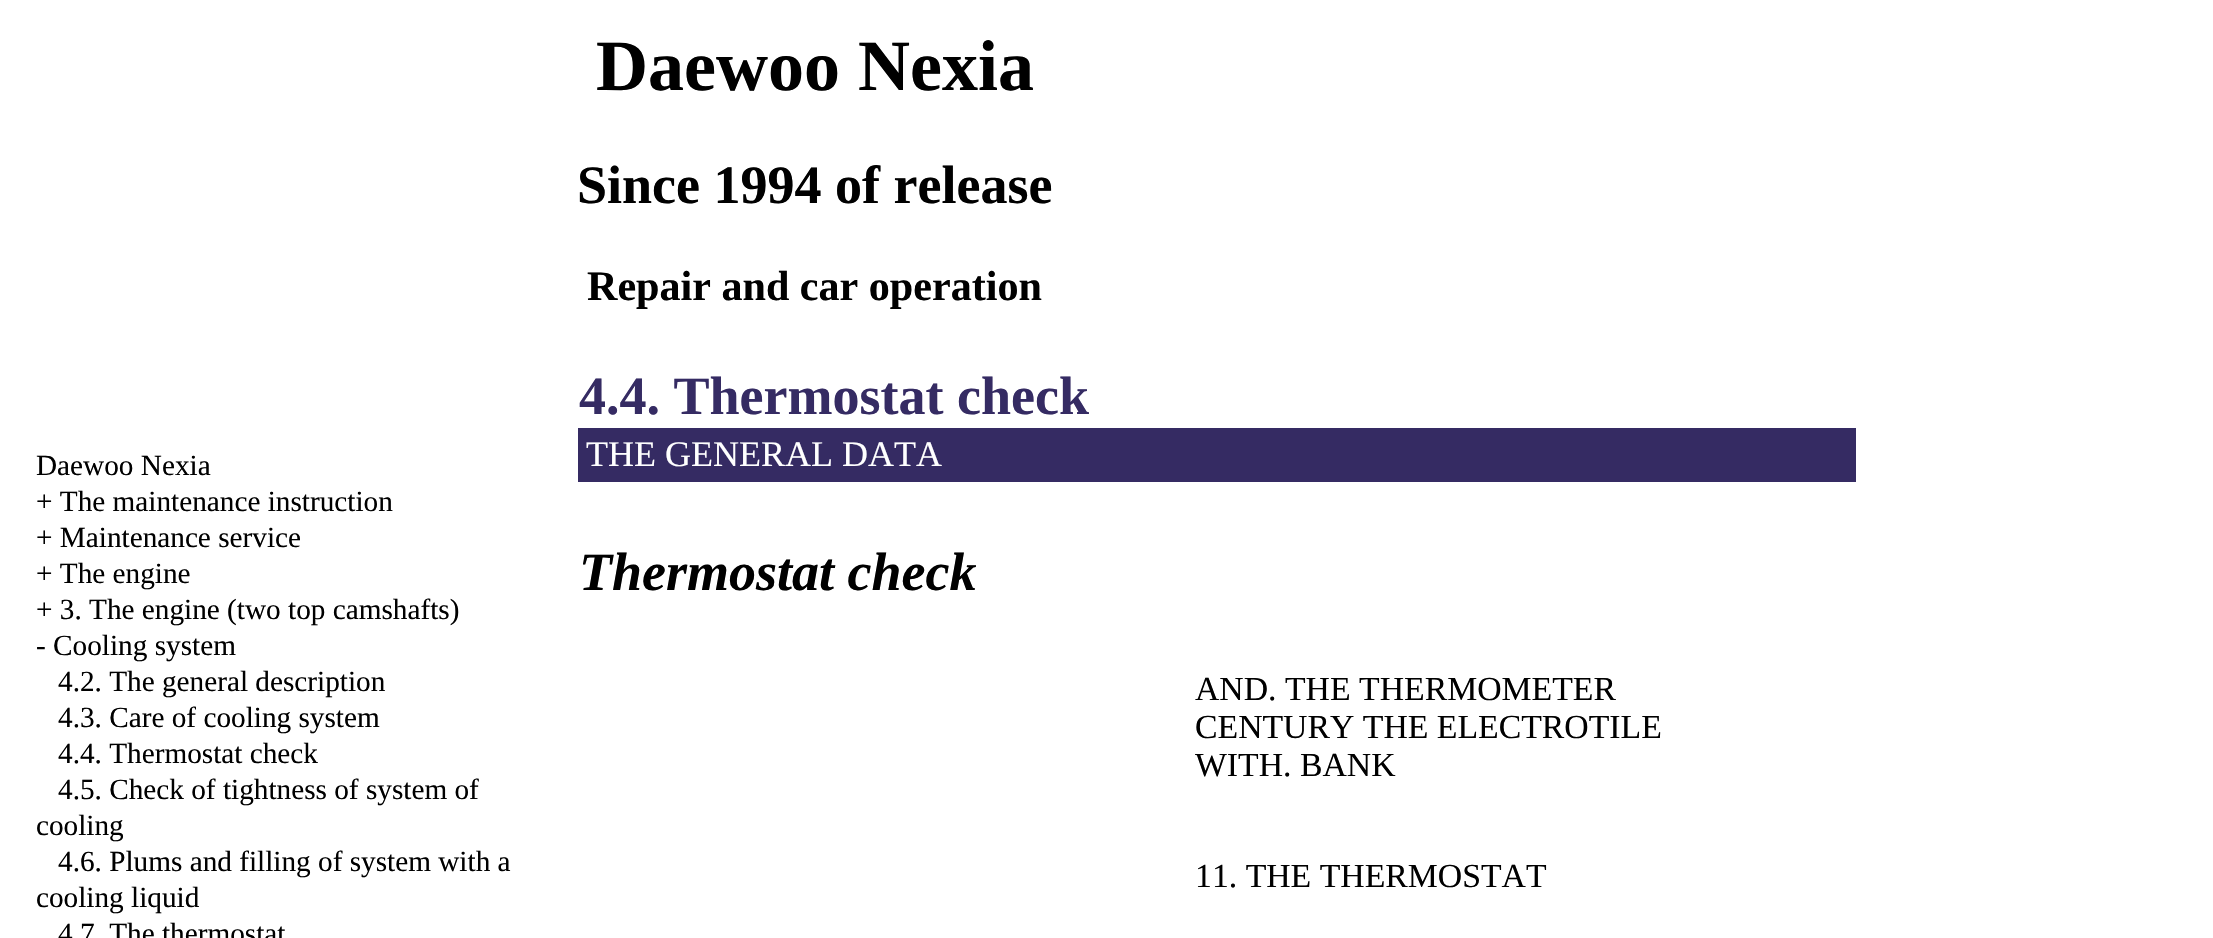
void draw(SkCanvas* canvas) {
	SkPaint paint;
	paint.setAntiAlias(true);
	canvas->clear(0xffffffff);
	SkFont f1(fontMgr->matchFamilyStyle("Liberation Serif", SkFontStyle::Bold()), 72);
	f1.setSubpixel(true);
	paint.setColor(0xff000000);
	canvas->drawString("Daewoo Nexia", 596, 90, f1, paint);
	SkFont f2(fontMgr->matchFamilyStyle("Liberation Serif", SkFontStyle::Bold()), 54);
	f2.setSubpixel(true);
	canvas->drawString("Since 1994 of release", 577, 203, f2, paint);
	SkFont f3(fontMgr->matchFamilyStyle("Liberation Serif", SkFontStyle::Bold()), 42.1);
	f3.setSubpixel(true);
	canvas->drawString("Repair and car operation", 587, 300, f3, paint);
	SkFont f4(fontMgr->matchFamilyStyle("Liberation Serif", SkFontStyle::Normal()), 29.25);
	f4.setSubpixel(true);
	canvas->drawString("Daewoo Nexia", 36, 475, f4, paint);
	canvas->drawString("+ The maintenance instruction", 36, 511, f4, paint);
	canvas->drawString("+ Maintenance service", 36, 547, f4, paint);
	canvas->drawString("+ The engine", 36, 583, f4, paint);
	canvas->drawString("+ 3. The engine (two top camshafts)", 36, 619, f4, paint);
	canvas->drawString("- Cooling system", 36, 655, f4, paint);
	canvas->drawString("4.2. The general description", 58, 691, f4, paint);
	canvas->drawString("4.3. Care of cooling system", 58, 727, f4, paint);
	canvas->drawString("4.4. Thermostat check", 58, 763, f4, paint);
	canvas->drawString("4.5. Check of tightness of system of", 58, 799, f4, paint);
	canvas->drawString("cooling", 36, 835, f4, paint);
	canvas->drawString("4.6. Plums and filling of system with a", 58, 871, f4, paint);
	canvas->drawString("cooling liquid", 36, 907, f4, paint);
	canvas->drawString("4.7. The thermostat", 58, 943, f4, paint);
	paint.setColor(0xff352b63);
	canvas->drawString("4.4. Thermostat check", 579, 414, f2, paint);
	canvas->drawRect(SkRect::MakeXYWH(578, 428, 1278, 54), paint);
	SkFont f5(fontMgr->matchFamilyStyle("Liberation Serif", SkFontStyle::Normal()), 36);
	f5.setSubpixel(true);
	paint.setColor(0xffffffff);
	canvas->drawString("THE GENERAL DATA", 586, 466, f5, paint);
	SkFont f6(fontMgr->matchFamilyStyle("Liberation Serif", SkFontStyle::BoldItalic()), 54);
	f6.setSubpixel(true);
	paint.setColor(0xff000000);
	canvas->drawString("Thermostat check", 579, 590, f6, paint);
	SkFont f7(fontMgr->matchFamilyStyle("Liberation Serif", SkFontStyle::Normal()), 33.75);
	f7.setSubpixel(true);
	canvas->drawString("AND. THE THERMOMETER", 1195, 700, f7, paint);
	canvas->drawString("CENTURY THE ELECTROTILE", 1195, 738, f7, paint);
	canvas->drawString("WITH. BANK", 1195, 776, f7, paint);
	canvas->drawString("11. THE THERMOSTAT", 1195, 887, f7, paint);
}
